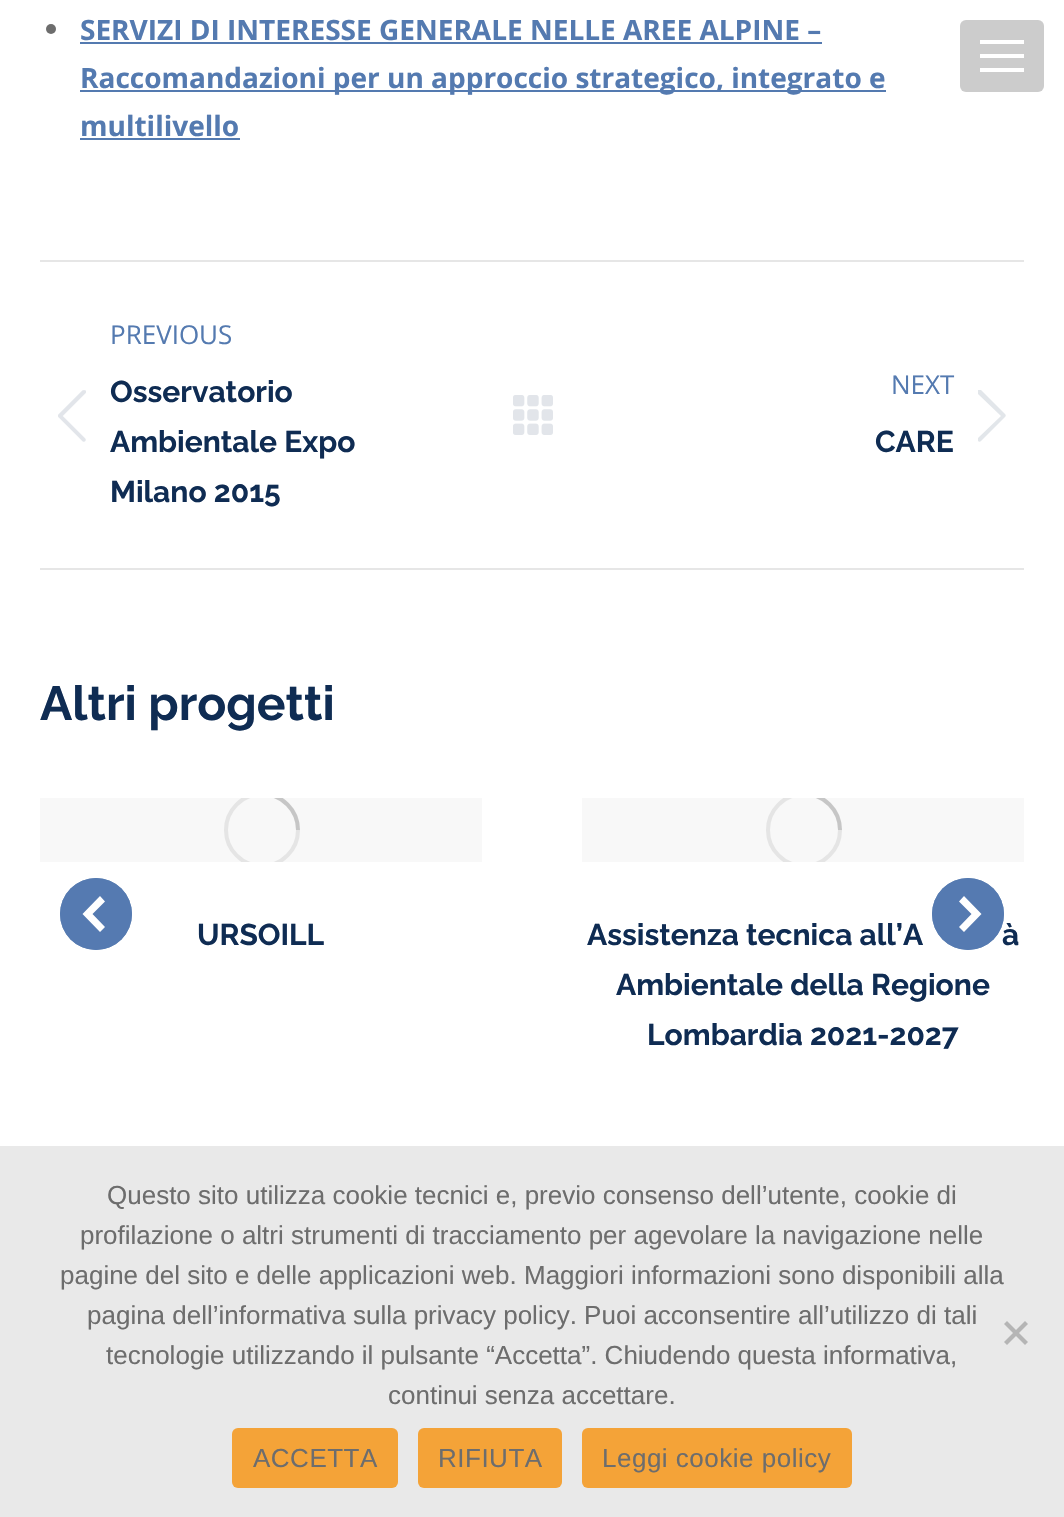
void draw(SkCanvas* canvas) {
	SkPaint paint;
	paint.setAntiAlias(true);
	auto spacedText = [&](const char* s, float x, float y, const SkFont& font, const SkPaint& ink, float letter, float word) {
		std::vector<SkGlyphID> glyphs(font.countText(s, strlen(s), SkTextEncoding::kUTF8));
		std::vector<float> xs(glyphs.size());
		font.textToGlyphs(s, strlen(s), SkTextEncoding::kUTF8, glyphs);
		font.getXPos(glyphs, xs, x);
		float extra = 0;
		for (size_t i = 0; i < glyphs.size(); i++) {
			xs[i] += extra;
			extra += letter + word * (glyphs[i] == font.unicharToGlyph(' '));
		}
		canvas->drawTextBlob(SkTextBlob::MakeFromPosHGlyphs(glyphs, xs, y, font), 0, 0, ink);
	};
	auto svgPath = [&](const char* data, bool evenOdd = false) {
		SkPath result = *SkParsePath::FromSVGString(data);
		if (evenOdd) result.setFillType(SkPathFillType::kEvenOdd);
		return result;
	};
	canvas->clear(0xffffffff);
	paint.setColor(0xff6d6d6d);
	canvas->drawCircle(51, 29, 5, paint);
	SkFont f1(fontMgr->matchFamilyStyle("Open Sans", SkFontStyle::Bold()), 28);
	f1.setSubpixel(true);
	paint.setColor(0xff547ab0);
	canvas->drawString("SERVIZI DI INTERESSE GENERALE NELLE AREE ALPINE –", 80, 40, f1, paint);
	canvas->drawRect(SkRect::MakeXYWH(80, 42, 742, 2), paint);
	canvas->drawRect(SkRect::MakeXYWH(80, 90, 806, 2), paint);
	canvas->drawString("Raccomandazioni per un approccio strategico, integrato e", 80, 88, f1, paint);
	canvas->drawString("multilivello", 80, 136, f1, paint);
	canvas->drawRect(SkRect::MakeXYWH(80, 138, 160, 2), paint);
	paint.setColor(0xffe6e6e6);
	canvas->drawRect(SkRect::MakeXYWH(40, 260, 984, 2), paint);
	canvas->drawRect(SkRect::MakeXYWH(40, 568, 984, 2), paint);
	SkFont f2(fontMgr->matchFamilyStyle("Open Sans", SkFontStyle::Normal()), 26);
	f2.setSubpixel(true);
	paint.setColor(0xff547ab0);
	canvas->drawString("PREVIOUS", 110, 344, f2, paint);
	canvas->drawImageRect(SkImages::DeferredFromEncodedData(SkData::MakeFromFileName("img1.png")), SkRect::MakeXYWH(58, 390, 28, 52), SkSamplingOptions());
	SkFont f3(fontMgr->matchFamilyStyle("Raleway", SkFontStyle::Bold()), 30);
	f3.setSubpixel(true);
	paint.setColor(0xff0f2c53);
	canvas->drawString("Osservatorio", 110, 402, f3, paint);
	canvas->drawString("Ambientale Expo", 110, 452, f3, paint);
	canvas->drawString("Milano 2015", 110, 502, f3, paint);
	canvas->drawImageRect(SkImages::DeferredFromEncodedData(SkData::MakeFromFileName("img2.png")), SkRect::MakeXYWH(513, 395, 40, 40), SkSamplingOptions());
	paint.setColor(0xff547ab0);
	canvas->drawString("NEXT", 891, 394, f2, paint);
	paint.setColor(0xff0f2c53);
	canvas->drawString("CARE", 875, 452, f3, paint);
	paint.setColor(0xffe2e6ea);
	canvas->drawPath(svgPath("M978 390C979 390 980 390 981 390L1005 414C1006 415 1006 416 1005 417L981 441C980 442 979 442 978 441C978 440 978 439 978 438L1001 416L978 394Z"), paint);
	SkFont f4(fontMgr->matchFamilyStyle("Raleway", SkFontStyle::Bold()), 48);
	f4.setSubpixel(true);
	paint.setColor(0xff0f2c53);
	canvas->drawString("Altri progetti", 40, 720, f4, paint);
	paint.setColor(0xff547ab0);
	canvas->drawCircle(96, 914, 36, paint);
	paint.setColor(0xe6547ab0);
	canvas->drawCircle(96, 914, 36, paint);
	paint.setColor(0xffffffff);
	canvas->drawPath(svgPath("M105 927L92.5 914L105 901.5L100 896L82.5 914L100 932Z"), paint);
	paint.setColor(0xff0f2c53);
	canvas->drawString("à", 1002, 945, f3, paint);
	paint.setColor(0xff547ab0);
	canvas->drawCircle(968, 914, 36, paint);
	paint.setColor(0xe6547ab0);
	canvas->drawCircle(968, 914, 36, paint);
	paint.setColor(0xffffffff);
	canvas->drawPath(svgPath("M964 932L981.5 914L964 896L959 901.5L971.5 914L959 927Z"), paint);
	paint.setColor(0xfff8f8f8);
	canvas->drawRect(SkRect::MakeXYWH(40, 798, 442, 64), paint);
	canvas->save();
	canvas->clipRect(SkRect::MakeXYWH(224, 798, 76, 64));
	paint.setStroke(true);
	paint.setStrokeWidth(4);
	paint.setColor(0xffe5e5e5);
	canvas->drawCircle(262, 830, 36, paint);
	paint.setColor(0x406d6d6d);
	canvas->drawPath(svgPath("M298 830C298 810 282 794 262 794"), paint);
	canvas->restore();
	paint.setStroke(false);
	paint.setColor(0xff0f2c53);
	canvas->drawString("URSOILL", 197, 945, f3, paint);
	paint.setColor(0xfff8f8f8);
	canvas->drawRect(SkRect::MakeXYWH(582, 798, 442, 64), paint);
	canvas->save();
	canvas->clipRect(SkRect::MakeXYWH(766, 798, 76, 64));
	paint.setStroke(true);
	paint.setColor(0xffe5e5e5);
	canvas->drawCircle(804, 830, 36, paint);
	paint.setColor(0x406d6d6d);
	canvas->drawPath(svgPath("M840 830C840 810 824 794 804 794"), paint);
	canvas->restore();
	paint.setStroke(false);
	paint.setColor(0xff0f2c53);
	canvas->drawString("Assistenza tecnica all’A", 587, 945, f3, paint);
	canvas->drawString("Ambientale della Regione", 616, 995, f3, paint);
	canvas->drawString("Lombardia 2021-2027", 647, 1045, f3, paint);
	paint.setColor(0xffcccccc);
	canvas->drawRoundRect(SkRect::MakeXYWH(960, 20, 84, 72), 6, 6, paint);
	paint.setColor(0xffffffff);
	canvas->drawRect(SkRect::MakeXYWH(980, 40, 44, 4), paint);
	canvas->drawRect(SkRect::MakeXYWH(980, 54, 44, 4), paint);
	canvas->drawRect(SkRect::MakeXYWH(980, 68, 44, 4), paint);
	paint.setColor(0xffe9e9e9);
	canvas->drawRect(SkRect::MakeXYWH(0, 1146, 1064, 371), paint);
	SkFont f5(fontMgr->matchFamilyStyle("Liberation Sans", SkFontStyle::Normal()), 26);
	f5.setSubpixel(true);
	paint.setColor(0xff6d6d6d);
	canvas->drawString("Questo sito utilizza cookie tecnici e, previo consenso dell’utente, cookie di", 107, 1204, f5, paint);
	canvas->drawString("profilazione o altri strumenti di tracciamento per agevolare la navigazione nelle", 80, 1244, f5, paint);
	canvas->drawString("pagine del sito e delle applicazioni web. Maggiori informazioni sono disponibili alla", 60, 1284, f5, paint);
	canvas->drawString("pagina dell’informativa sulla privacy policy. Puoi acconsentire all’utilizzo di tali", 87, 1324, f5, paint);
	canvas->drawString("tecnologie utilizzando il pulsante “Accetta”. Chiudendo questa informativa,", 106, 1364, f5, paint);
	canvas->drawString("continui senza accettare.", 388, 1404, f5, paint);
	paint.setColor(0xffb5b5b5);
	canvas->drawPath(svgPath("M1025 1321L1028 1324L1007 1345L1004 1342Z"), paint);
	canvas->drawPath(svgPath("M1004 1324L1007 1321L1028 1342L1025 1345Z"), paint);
	paint.setColor(0xfff4a338);
	canvas->drawRoundRect(SkRect::MakeXYWH(232, 1428, 166, 60), 6, 6, paint);
	paint.setColor(0xff6d6d6d);
	spacedText("ACCETTA", 253, 1467, f5, paint, 0.5, 0);
	paint.setColor(0xfff4a338);
	canvas->drawRoundRect(SkRect::MakeXYWH(418, 1428, 144, 60), 6, 6, paint);
	paint.setColor(0xff6d6d6d);
	spacedText("RIFIUTA", 438, 1467, f5, paint, 0.5, 0);
	paint.setColor(0xfff4a338);
	canvas->drawRoundRect(SkRect::MakeXYWH(582, 1428, 270, 60), 6, 6, paint);
	paint.setColor(0xff6d6d6d);
	spacedText("Leggi cookie policy", 602, 1467, f5, paint, 0.5, 0);
}
